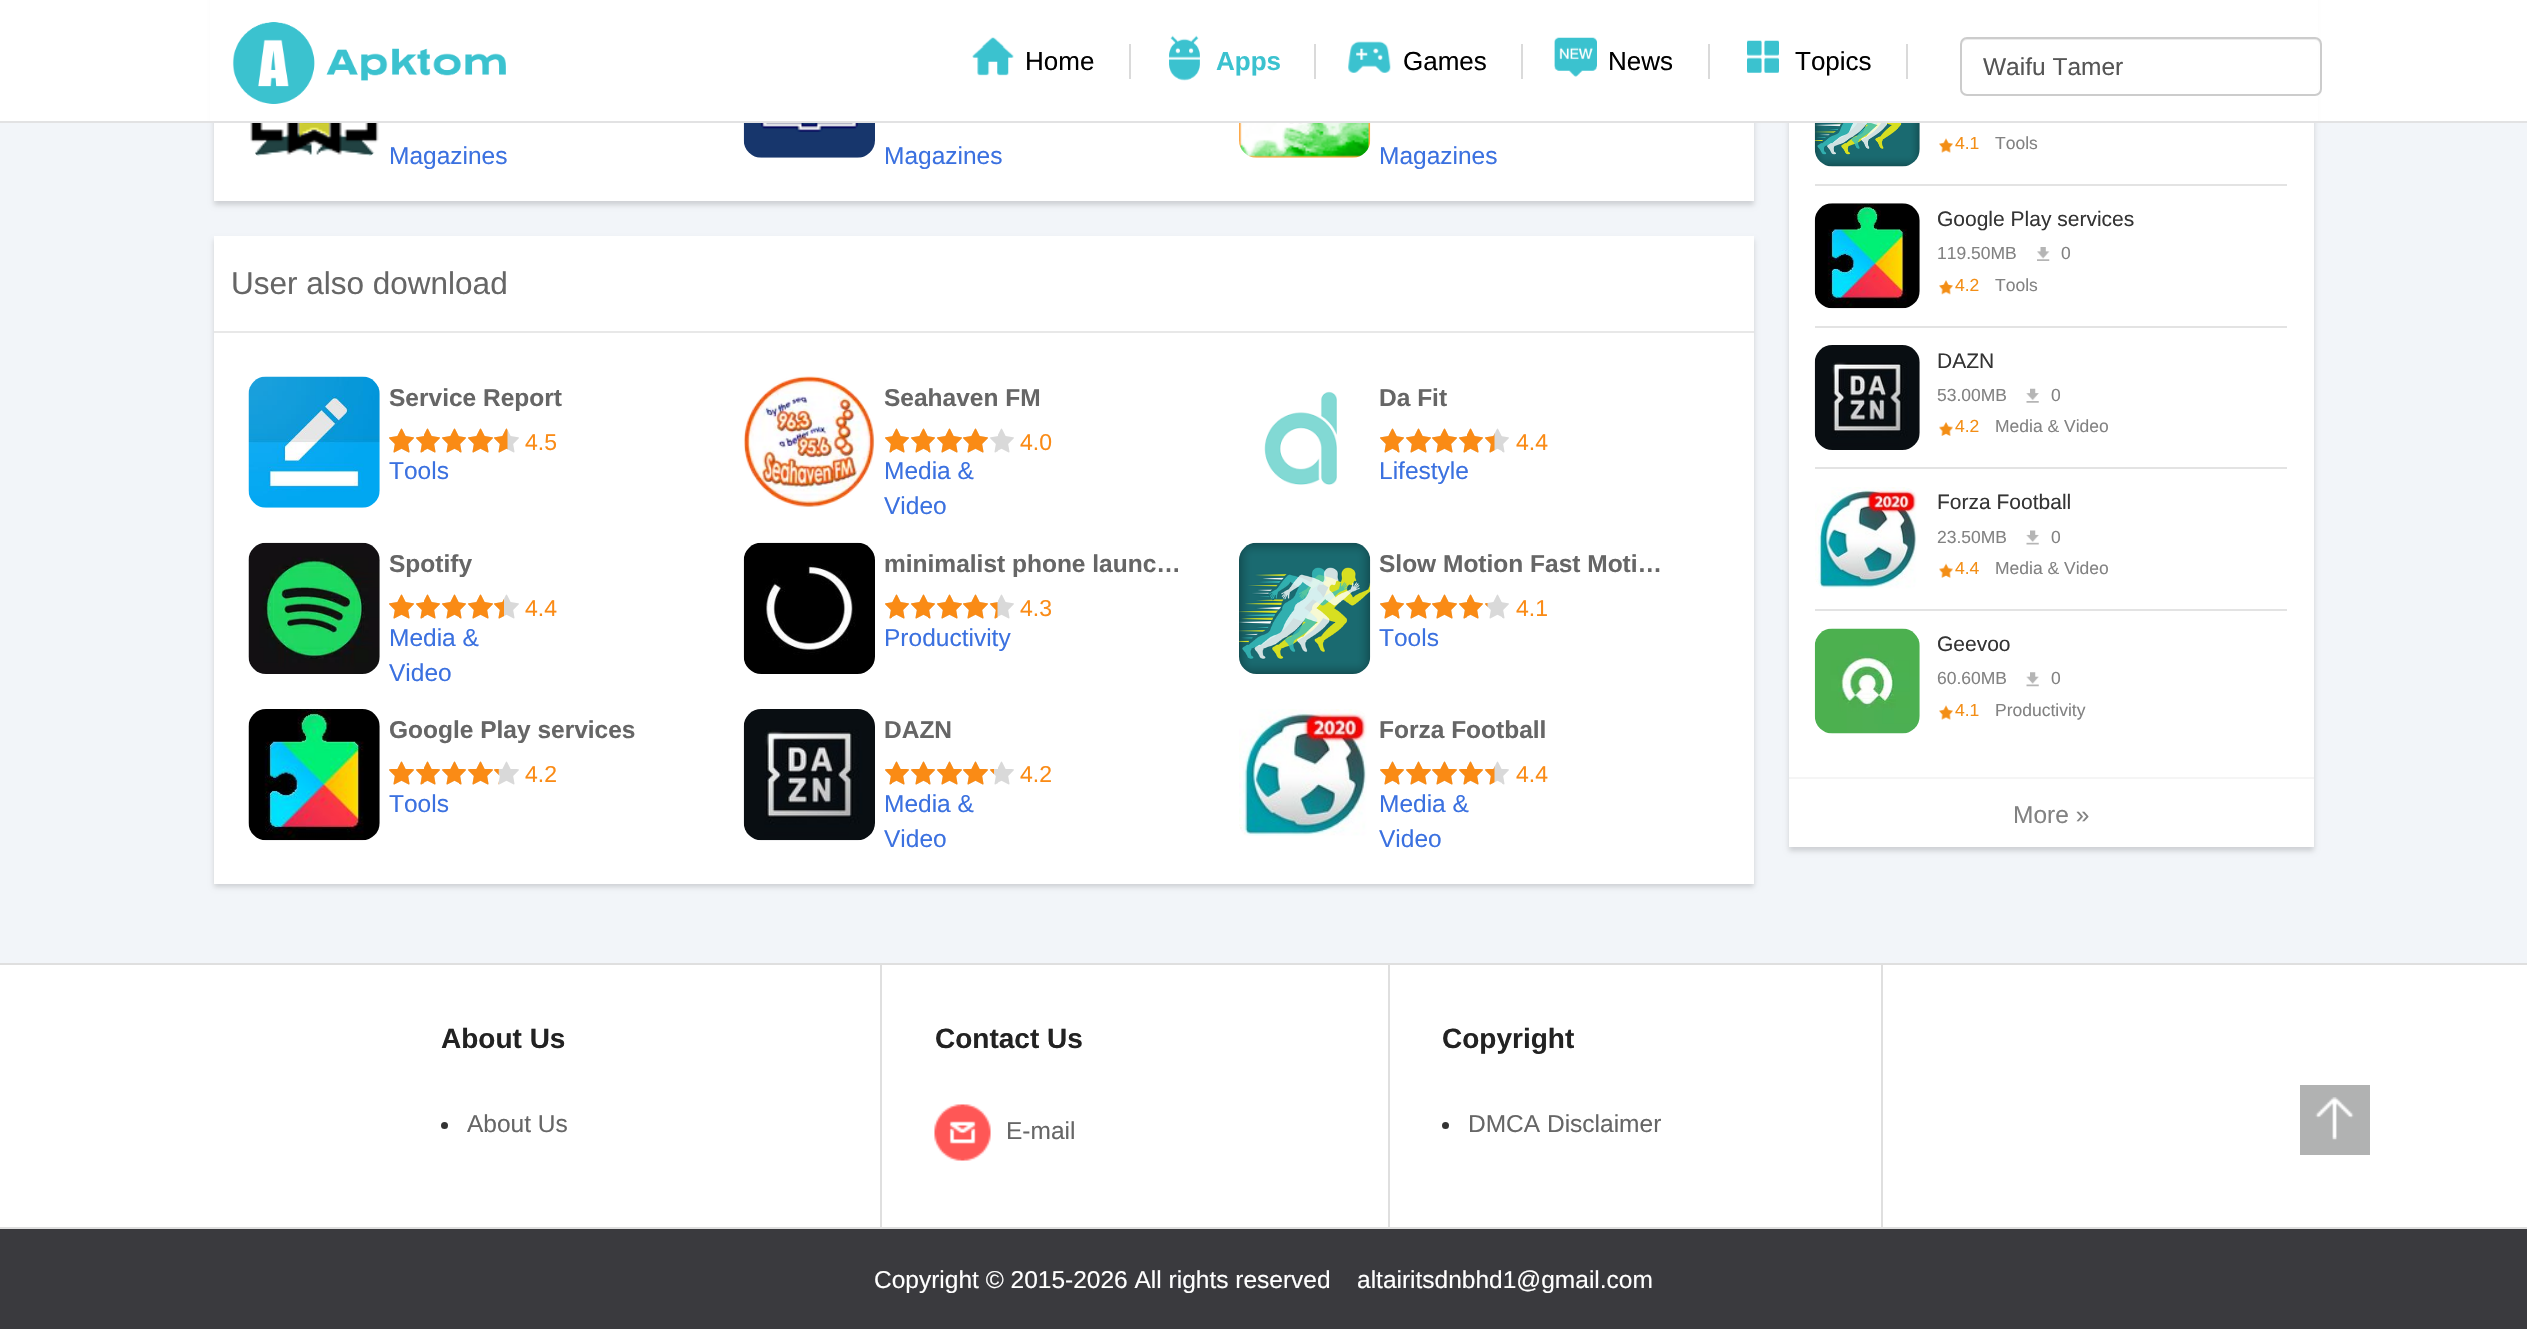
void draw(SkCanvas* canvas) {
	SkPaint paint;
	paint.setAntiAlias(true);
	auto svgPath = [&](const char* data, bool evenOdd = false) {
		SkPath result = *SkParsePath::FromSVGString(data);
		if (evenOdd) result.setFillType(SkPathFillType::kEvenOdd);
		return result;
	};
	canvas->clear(0xffffffff);
	paint.setColor(0xfff2f5f9);
	canvas->drawRect(SkRect::MakeXYWH(0, 123, 2527, 840), paint);
	paint.setColor(0x26000000);
	paint.setMaskFilter(SkMaskFilter::MakeBlur(kNormal_SkBlurStyle, 2.5));
	canvas->drawRect(SkRect::MakeXYWH(214, -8, 1540, 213), paint);
	paint.setMaskFilter(nullptr);
	paint.setMaskFilter(SkMaskFilter::MakeBlur(kNormal_SkBlurStyle, 2.5));
	canvas->drawRect(SkRect::MakeXYWH(1789, -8, 525, 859), paint);
	paint.setMaskFilter(nullptr);
	paint.setColor(0xffffffff);
	canvas->drawRect(SkRect::MakeXYWH(210, 0, 2108, 121), paint);
	paint.setColor(0xffe2e2e3);
	canvas->drawRect(SkRect::MakeXYWH(0, 121, 2527, 2), paint);
	canvas->drawImageRect(SkImages::DeferredFromEncodedData(SkData::MakeFromFileName("img1.png")), SkRect::MakeXYWH(232, 22, 274, 82), SkSamplingOptions());
	canvas->drawImageRect(SkImages::DeferredFromEncodedData(SkData::MakeFromFileName("img2.png")), SkRect::MakeXYWH(972, 37, 42, 39), SkSamplingOptions());
	SkFont f1(fontMgr->matchFamilyStyle("Liberation Sans", SkFontStyle::Normal()), 26);
	f1.setSubpixel(true);
	paint.setColor(0xff000000);
	canvas->drawString("Home", 1025, 70, f1, paint);
	paint.setColor(0xffdadada);
	canvas->drawRect(SkRect::MakeXYWH(1129, 44, 2, 35), paint);
	canvas->drawImageRect(SkImages::DeferredFromEncodedData(SkData::MakeFromFileName("img3.png")), SkRect::MakeXYWH(1169, 35, 31, 46), SkSamplingOptions());
	SkFont f2(fontMgr->matchFamilyStyle("Liberation Sans", SkFontStyle::Bold()), 26);
	f2.setSubpixel(true);
	paint.setColor(0xff3bc2cf);
	canvas->drawString("Apps", 1216, 70, f2, paint);
	paint.setColor(0xffdadada);
	canvas->drawRect(SkRect::MakeXYWH(1314, 44, 2, 35), paint);
	canvas->drawImageRect(SkImages::DeferredFromEncodedData(SkData::MakeFromFileName("img4.png")), SkRect::MakeXYWH(1348, 41, 43, 32), SkSamplingOptions());
	paint.setColor(0xff000000);
	canvas->drawString("Games", 1403, 70, f1, paint);
	paint.setColor(0xffdadada);
	canvas->drawRect(SkRect::MakeXYWH(1521, 44, 2, 35), paint);
	canvas->drawImageRect(SkImages::DeferredFromEncodedData(SkData::MakeFromFileName("img5.png")), SkRect::MakeXYWH(1554, 37, 43, 40), SkSamplingOptions());
	paint.setColor(0xff000000);
	canvas->drawString("News", 1608, 70, f1, paint);
	paint.setColor(0xffdadada);
	canvas->drawRect(SkRect::MakeXYWH(1708, 44, 2, 35), paint);
	canvas->drawImageRect(SkImages::DeferredFromEncodedData(SkData::MakeFromFileName("img6.png")), SkRect::MakeXYWH(1747, 40, 32, 33), SkSamplingOptions());
	paint.setColor(0xff000000);
	canvas->drawString("Topics", 1795, 70, f1, paint);
	paint.setColor(0xffdadada);
	canvas->drawRect(SkRect::MakeXYWH(1906, 44, 2, 35), paint);
	paint.setColor(0xffececec);
	canvas->drawPath(svgPath("M1967 40H2315C2318 40 2320 43 2320 46V91L2319 94C2320 93 2321 91 2321 90V44C2321 41 2319 39 2316 39H1967C1964 39 1962 41 1962 44V46C1962 43 1964 40 1967 40Z"), paint);
	paint.setStroke(true);
	paint.setStrokeWidth(2);
	paint.setColor(0xffcccccc);
	canvas->drawRoundRect(SkRect::MakeXYWH(1961, 38, 360, 57), 6, 6, paint);
	SkFont f3(fontMgr->matchFamilyStyle("Liberation Sans", SkFontStyle::Normal()), 24.5);
	f3.setSubpixel(true);
	paint.setStroke(false);
	paint.setColor(0xff555555);
	canvas->drawString("Waifu Tamer", 1983, 75, f3, paint);
	paint.setColor(0xffffffff);
	canvas->drawRect(SkRect::MakeXYWH(214, 123, 1540, 78), paint);
	canvas->drawImageRect(SkImages::DeferredFromEncodedData(SkData::MakeFromFileName("img7.png")), SkRect::MakeXYWH(250, 123, 129, 34), SkSamplingOptions());
	paint.setColor(0xff3b71e0);
	canvas->drawString("Magazines", 389, 164, f3, paint);
	canvas->drawImageRect(SkImages::DeferredFromEncodedData(SkData::MakeFromFileName("img8.png")), SkRect::MakeXYWH(743, 123, 132, 35), SkSamplingOptions());
	canvas->drawString("Magazines", 884, 164, f3, paint);
	canvas->drawImageRect(SkImages::DeferredFromEncodedData(SkData::MakeFromFileName("img9.png")), SkRect::MakeXYWH(1239, 123, 132, 35), SkSamplingOptions());
	canvas->drawString("Magazines", 1379, 164, f3, paint);
	paint.setColor(0x26000000);
	paint.setMaskFilter(SkMaskFilter::MakeBlur(kNormal_SkBlurStyle, 2.5));
	canvas->drawRect(SkRect::MakeXYWH(214, 240, 1540, 647), paint);
	paint.setMaskFilter(nullptr);
	paint.setColor(0xffffffff);
	canvas->drawRect(SkRect::MakeXYWH(214, 236, 1540, 648), paint);
	paint.setColor(0xffe8e8e8);
	canvas->drawRect(SkRect::MakeXYWH(214, 331, 1540, 2), paint);
	SkFont f4(fontMgr->matchFamilyStyle("Liberation Sans", SkFontStyle::Normal()), 31.5);
	f4.setSubpixel(true);
	paint.setColor(0xff666666);
	canvas->drawString("User also download", 231, 294, f4, paint);
	canvas->drawImageRect(SkImages::DeferredFromEncodedData(SkData::MakeFromFileName("img10.png")), SkRect::MakeXYWH(248, 376, 132, 132), SkSamplingOptions());
	SkFont f5(fontMgr->matchFamilyStyle("Liberation Sans", SkFontStyle::Bold()), 24.5);
	f5.setSubpixel(true);
	canvas->drawString("Service Report", 389, 406, f5, paint);
	canvas->drawImageRect(SkImages::DeferredFromEncodedData(SkData::MakeFromFileName("img11.png")), SkRect::MakeXYWH(389, 428, 130, 25), SkSamplingOptions());
	canvas->drawImageRect(SkImages::DeferredFromEncodedData(SkData::MakeFromFileName("img12.png")), SkRect::MakeXYWH(389, 428, 119, 25), SkSamplingOptions());
	SkFont f6(fontMgr->matchFamilyStyle("Liberation Sans", SkFontStyle::Normal()), 23);
	f6.setSubpixel(true);
	paint.setColor(0xfffa8b16);
	canvas->drawString("4.5", 525, 450, f6, paint);
	paint.setColor(0xff3b71e0);
	canvas->drawString("Tools", 389, 479, f3, paint);
	canvas->drawImageRect(SkImages::DeferredFromEncodedData(SkData::MakeFromFileName("img13.png")), SkRect::MakeXYWH(743, 376, 132, 131), SkSamplingOptions());
	paint.setColor(0xff666666);
	canvas->drawString("Seahaven FM", 884, 406, f5, paint);
	canvas->drawImageRect(SkImages::DeferredFromEncodedData(SkData::MakeFromFileName("img14.png")), SkRect::MakeXYWH(885, 428, 129, 25), SkSamplingOptions());
	canvas->drawImageRect(SkImages::DeferredFromEncodedData(SkData::MakeFromFileName("img15.png")), SkRect::MakeXYWH(885, 428, 103, 25), SkSamplingOptions());
	paint.setColor(0xfffa8b16);
	canvas->drawString("4.0", 1020, 450, f6, paint);
	paint.setColor(0xff3b71e0);
	canvas->drawString("Media &", 884, 479, f3, paint);
	canvas->drawString("Video", 884, 514, f3, paint);
	canvas->drawImageRect(SkImages::DeferredFromEncodedData(SkData::MakeFromFileName("img16.png")), SkRect::MakeXYWH(1264, 391, 73, 94), SkSamplingOptions());
	paint.setColor(0xff666666);
	canvas->drawString("Da Fit", 1379, 406, f5, paint);
	canvas->drawImageRect(SkImages::DeferredFromEncodedData(SkData::MakeFromFileName("img17.png")), SkRect::MakeXYWH(1380, 428, 129, 25), SkSamplingOptions());
	canvas->drawImageRect(SkImages::DeferredFromEncodedData(SkData::MakeFromFileName("img18.png")), SkRect::MakeXYWH(1380, 428, 115, 25), SkSamplingOptions());
	paint.setColor(0xfffa8b16);
	canvas->drawString("4.4", 1516, 450, f6, paint);
	paint.setColor(0xff3b71e0);
	canvas->drawString("Lifestyle", 1379, 479, f3, paint);
	canvas->drawImageRect(SkImages::DeferredFromEncodedData(SkData::MakeFromFileName("img19.png")), SkRect::MakeXYWH(248, 542, 132, 132), SkSamplingOptions());
	paint.setColor(0xff666666);
	canvas->drawString("Spotify", 389, 572, f5, paint);
	canvas->drawImageRect(SkImages::DeferredFromEncodedData(SkData::MakeFromFileName("img11.png")), SkRect::MakeXYWH(389, 594, 130, 25), SkSamplingOptions());
	canvas->drawImageRect(SkImages::DeferredFromEncodedData(SkData::MakeFromFileName("img20.png")), SkRect::MakeXYWH(389, 594, 115, 25), SkSamplingOptions());
	paint.setColor(0xfffa8b16);
	canvas->drawString("4.4", 525, 616, f6, paint);
	paint.setColor(0xff3b71e0);
	canvas->drawString("Media &", 389, 646, f3, paint);
	canvas->drawString("Video", 389, 681, f3, paint);
	canvas->drawImageRect(SkImages::DeferredFromEncodedData(SkData::MakeFromFileName("img21.png")), SkRect::MakeXYWH(743, 542, 132, 132), SkSamplingOptions());
	paint.setColor(0xff666666);
	canvas->drawString("minimalist phone launc…", 884, 572, f5, paint);
	canvas->drawImageRect(SkImages::DeferredFromEncodedData(SkData::MakeFromFileName("img14.png")), SkRect::MakeXYWH(885, 594, 129, 25), SkSamplingOptions());
	canvas->drawImageRect(SkImages::DeferredFromEncodedData(SkData::MakeFromFileName("img22.png")), SkRect::MakeXYWH(885, 594, 113, 25), SkSamplingOptions());
	paint.setColor(0xfffa8b16);
	canvas->drawString("4.3", 1020, 616, f6, paint);
	paint.setColor(0xff3b71e0);
	canvas->drawString("Productivity", 884, 646, f3, paint);
	canvas->drawImageRect(SkImages::DeferredFromEncodedData(SkData::MakeFromFileName("img23.png")), SkRect::MakeXYWH(1239, 542, 132, 132), SkSamplingOptions());
	paint.setColor(0xff666666);
	canvas->drawString("Slow Motion Fast Moti…", 1379, 572, f5, paint);
	canvas->drawImageRect(SkImages::DeferredFromEncodedData(SkData::MakeFromFileName("img17.png")), SkRect::MakeXYWH(1380, 594, 129, 25), SkSamplingOptions());
	canvas->drawImageRect(SkImages::DeferredFromEncodedData(SkData::MakeFromFileName("img24.png")), SkRect::MakeXYWH(1380, 594, 108, 25), SkSamplingOptions());
	paint.setColor(0xfffa8b16);
	canvas->drawString("4.1", 1516, 616, f6, paint);
	paint.setColor(0xff3b71e0);
	canvas->drawString("Tools", 1379, 646, f3, paint);
	canvas->drawImageRect(SkImages::DeferredFromEncodedData(SkData::MakeFromFileName("img25.png")), SkRect::MakeXYWH(248, 709, 132, 132), SkSamplingOptions());
	paint.setColor(0xff666666);
	canvas->drawString("Google Play services", 389, 738, f5, paint);
	canvas->drawImageRect(SkImages::DeferredFromEncodedData(SkData::MakeFromFileName("img26.png")), SkRect::MakeXYWH(389, 761, 130, 24), SkSamplingOptions());
	canvas->drawImageRect(SkImages::DeferredFromEncodedData(SkData::MakeFromFileName("img27.png")), SkRect::MakeXYWH(389, 761, 110, 24), SkSamplingOptions());
	paint.setColor(0xfffa8b16);
	canvas->drawString("4.2", 525, 782, f6, paint);
	paint.setColor(0xff3b71e0);
	canvas->drawString("Tools", 389, 812, f3, paint);
	canvas->drawImageRect(SkImages::DeferredFromEncodedData(SkData::MakeFromFileName("img28.png")), SkRect::MakeXYWH(743, 709, 132, 132), SkSamplingOptions());
	paint.setColor(0xff666666);
	canvas->drawString("DAZN", 884, 738, f5, paint);
	canvas->drawImageRect(SkImages::DeferredFromEncodedData(SkData::MakeFromFileName("img29.png")), SkRect::MakeXYWH(885, 761, 129, 24), SkSamplingOptions());
	canvas->drawImageRect(SkImages::DeferredFromEncodedData(SkData::MakeFromFileName("img30.png")), SkRect::MakeXYWH(885, 761, 109, 24), SkSamplingOptions());
	paint.setColor(0xfffa8b16);
	canvas->drawString("4.2", 1020, 782, f6, paint);
	paint.setColor(0xff3b71e0);
	canvas->drawString("Media &", 884, 812, f3, paint);
	canvas->drawString("Video", 884, 847, f3, paint);
	canvas->drawImageRect(SkImages::DeferredFromEncodedData(SkData::MakeFromFileName("img31.png")), SkRect::MakeXYWH(1239, 709, 128, 127), SkSamplingOptions());
	paint.setColor(0xff666666);
	canvas->drawString("Forza Football", 1379, 738, f5, paint);
	canvas->drawImageRect(SkImages::DeferredFromEncodedData(SkData::MakeFromFileName("img32.png")), SkRect::MakeXYWH(1380, 761, 129, 24), SkSamplingOptions());
	canvas->drawImageRect(SkImages::DeferredFromEncodedData(SkData::MakeFromFileName("img33.png")), SkRect::MakeXYWH(1380, 761, 115, 24), SkSamplingOptions());
	paint.setColor(0xfffa8b16);
	canvas->drawString("4.4", 1516, 782, f6, paint);
	paint.setColor(0xff3b71e0);
	canvas->drawString("Media &", 1379, 812, f3, paint);
	canvas->drawString("Video", 1379, 847, f3, paint);
	paint.setColor(0xffffffff);
	canvas->drawRect(SkRect::MakeXYWH(1789, 123, 525, 724), paint);
	paint.setColor(0xffe3e3e3);
	canvas->drawRect(SkRect::MakeXYWH(1815, 184, 472, 2), paint);
	canvas->drawImageRect(SkImages::DeferredFromEncodedData(SkData::MakeFromFileName("img34.png")), SkRect::MakeXYWH(1814, 123, 106, 44), SkSamplingOptions());
	canvas->drawImageRect(SkImages::DeferredFromEncodedData(SkData::MakeFromFileName("img35.png")), SkRect::MakeXYWH(1939, 138, 14, 15), SkSamplingOptions());
	SkFont f7(fontMgr->matchFamilyStyle("Liberation Sans", SkFontStyle::Normal()), 17.5);
	f7.setSubpixel(true);
	paint.setColor(0xfff38e16);
	canvas->drawString("4.1", 1955, 149, f7, paint);
	paint.setColor(0xff828282);
	canvas->drawString("Tools", 1995, 149, f7, paint);
	paint.setColor(0xffe3e3e3);
	canvas->drawRect(SkRect::MakeXYWH(1815, 326, 472, 2), paint);
	canvas->drawImageRect(SkImages::DeferredFromEncodedData(SkData::MakeFromFileName("img36.png")), SkRect::MakeXYWH(1814, 203, 106, 106), SkSamplingOptions());
	SkFont f8(fontMgr->matchFamilyStyle("Liberation Sans", SkFontStyle::Normal()), 21);
	f8.setSubpixel(true);
	paint.setColor(0xff343434);
	canvas->drawString("Google Play services", 1937, 226, f8, paint);
	paint.setColor(0xff828282);
	canvas->drawString("119.50MB", 1937, 259, f7, paint);
	canvas->drawImageRect(SkImages::DeferredFromEncodedData(SkData::MakeFromFileName("img37.png")), SkRect::MakeXYWH(2037, 247, 13, 14), SkSamplingOptions());
	canvas->drawString("0", 2061, 259, f7, paint);
	canvas->drawImageRect(SkImages::DeferredFromEncodedData(SkData::MakeFromFileName("img38.png")), SkRect::MakeXYWH(1939, 280, 14, 15), SkSamplingOptions());
	paint.setColor(0xfff38e16);
	canvas->drawString("4.2", 1955, 291, f7, paint);
	paint.setColor(0xff828282);
	canvas->drawString("Tools", 1995, 291, f7, paint);
	paint.setColor(0xffe3e3e3);
	canvas->drawRect(SkRect::MakeXYWH(1815, 467, 472, 2), paint);
	canvas->drawImageRect(SkImages::DeferredFromEncodedData(SkData::MakeFromFileName("img39.png")), SkRect::MakeXYWH(1814, 345, 106, 105), SkSamplingOptions());
	paint.setColor(0xff343434);
	canvas->drawString("DAZN", 1937, 368, f8, paint);
	paint.setColor(0xff828282);
	canvas->drawString("53.00MB", 1937, 401, f7, paint);
	canvas->drawImageRect(SkImages::DeferredFromEncodedData(SkData::MakeFromFileName("img40.png")), SkRect::MakeXYWH(2026, 388, 13, 15), SkSamplingOptions());
	canvas->drawString("0", 2051, 401, f7, paint);
	canvas->drawImageRect(SkImages::DeferredFromEncodedData(SkData::MakeFromFileName("img41.png")), SkRect::MakeXYWH(1939, 422, 14, 14), SkSamplingOptions());
	paint.setColor(0xfff38e16);
	canvas->drawString("4.2", 1955, 432, f7, paint);
	paint.setColor(0xff828282);
	canvas->drawString("Media & Video", 1995, 432, f7, paint);
	paint.setColor(0xffe3e3e3);
	canvas->drawRect(SkRect::MakeXYWH(1815, 609, 472, 2), paint);
	canvas->drawImageRect(SkImages::DeferredFromEncodedData(SkData::MakeFromFileName("img42.png")), SkRect::MakeXYWH(1815, 487, 102, 102), SkSamplingOptions());
	paint.setColor(0xff343434);
	canvas->drawString("Forza Football", 1937, 509, f8, paint);
	paint.setColor(0xff828282);
	canvas->drawString("23.50MB", 1937, 543, f7, paint);
	canvas->drawImageRect(SkImages::DeferredFromEncodedData(SkData::MakeFromFileName("img43.png")), SkRect::MakeXYWH(2026, 530, 13, 15), SkSamplingOptions());
	canvas->drawString("0", 2051, 543, f7, paint);
	canvas->drawImageRect(SkImages::DeferredFromEncodedData(SkData::MakeFromFileName("img44.png")), SkRect::MakeXYWH(1939, 563, 14, 15), SkSamplingOptions());
	paint.setColor(0xfff38e16);
	canvas->drawString("4.4", 1955, 574, f7, paint);
	paint.setColor(0xff828282);
	canvas->drawString("Media & Video", 1995, 574, f7, paint);
	canvas->drawImageRect(SkImages::DeferredFromEncodedData(SkData::MakeFromFileName("img45.png")), SkRect::MakeXYWH(1814, 628, 106, 106), SkSamplingOptions());
	paint.setColor(0xff343434);
	canvas->drawString("Geevoo", 1937, 651, f8, paint);
	paint.setColor(0xff828282);
	canvas->drawString("60.60MB", 1937, 684, f7, paint);
	canvas->drawImageRect(SkImages::DeferredFromEncodedData(SkData::MakeFromFileName("img46.png")), SkRect::MakeXYWH(2026, 672, 13, 15), SkSamplingOptions());
	canvas->drawString("0", 2051, 684, f7, paint);
	canvas->drawImageRect(SkImages::DeferredFromEncodedData(SkData::MakeFromFileName("img35.png")), SkRect::MakeXYWH(1939, 705, 14, 15), SkSamplingOptions());
	paint.setColor(0xfff38e16);
	canvas->drawString("4.1", 1955, 716, f7, paint);
	paint.setColor(0xff828282);
	canvas->drawString("Productivity", 1995, 716, f7, paint);
	paint.setColor(0xfff5f5f5);
	canvas->drawRect(SkRect::MakeXYWH(1789, 777, 525, 2), paint);
	paint.setColor(0xff828282);
	canvas->drawString("More »", 2013, 823, f3, paint);
	paint.setColor(0xffb1b2b2);
	canvas->drawRect(SkRect::MakeXYWH(2300, 1085, 70, 70), paint);
	canvas->drawImageRect(SkImages::DeferredFromEncodedData(SkData::MakeFromFileName("img47.png")), SkRect::MakeXYWH(2315, 1097, 39, 43), SkSamplingOptions());
	paint.setColor(0xffdfdfdf);
	canvas->drawRect(SkRect::MakeXYWH(0, 963, 2527, 2), paint);
	canvas->drawRect(SkRect::MakeXYWH(0, 1227, 2527, 2), paint);
	canvas->drawRect(SkRect::MakeXYWH(880, 964, 2, 263), paint);
	SkFont f9(fontMgr->matchFamilyStyle("Liberation Sans", SkFontStyle::Bold()), 28);
	f9.setSubpixel(true);
	paint.setColor(0xff222222);
	canvas->drawString("About Us", 441, 1048, f9, paint);
	paint.setColor(0xff333333);
	canvas->drawCircle(444.5, 1125.5, 3.5, paint);
	paint.setColor(0xff666666);
	canvas->drawString("About Us", 467, 1132, f3, paint);
	paint.setColor(0xffdfdfdf);
	canvas->drawRect(SkRect::MakeXYWH(1388, 964, 2, 263), paint);
	paint.setColor(0xff222222);
	canvas->drawString("Contact Us", 935, 1048, f9, paint);
	canvas->drawImageRect(SkImages::DeferredFromEncodedData(SkData::MakeFromFileName("img48.png")), SkRect::MakeXYWH(934, 1104, 57, 57), SkSamplingOptions());
	paint.setColor(0xff666666);
	canvas->drawString("E-mail", 1006, 1139, f3, paint);
	paint.setColor(0xffdfdfdf);
	canvas->drawRect(SkRect::MakeXYWH(1881, 964, 2, 263), paint);
	paint.setColor(0xff222222);
	canvas->drawString("Copyright", 1442, 1048, f9, paint);
	paint.setColor(0xff333333);
	canvas->drawCircle(1445.5, 1125.5, 3.5, paint);
	paint.setColor(0xff666666);
	canvas->drawString("DMCA Disclaimer", 1468, 1132, f3, paint);
	paint.setColor(0xff3a3a3e);
	canvas->drawRect(SkRect::MakeXYWH(0, 1229, 2527, 100), paint);
	paint.setColor(0xffffffff);
	canvas->drawString("Copyright © 2015-2026 All rights reserved", 874, 1288, f3, paint);
	canvas->drawString("altairitsdnbhd1@gmail.com", 1357, 1288, f3, paint);
}
